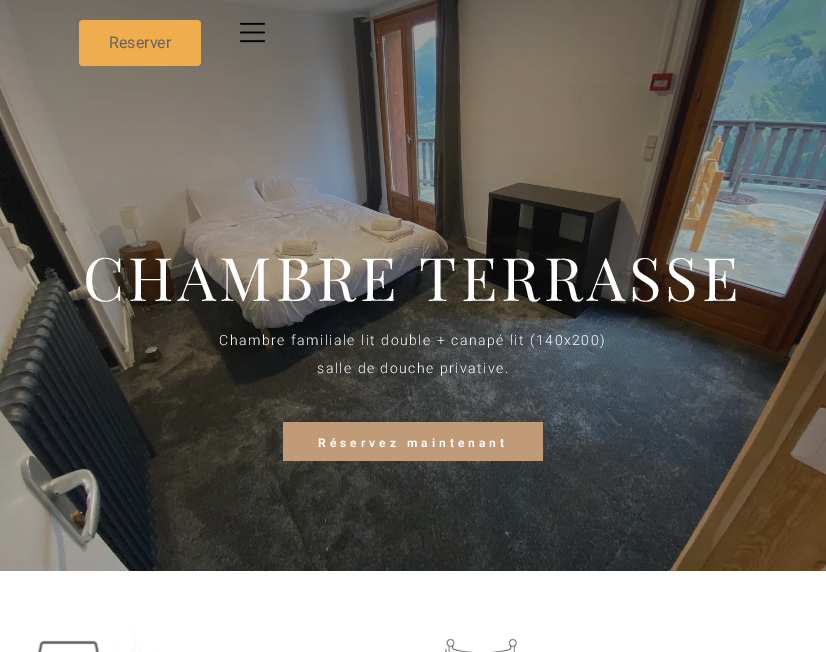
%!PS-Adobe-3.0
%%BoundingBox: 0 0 826 652
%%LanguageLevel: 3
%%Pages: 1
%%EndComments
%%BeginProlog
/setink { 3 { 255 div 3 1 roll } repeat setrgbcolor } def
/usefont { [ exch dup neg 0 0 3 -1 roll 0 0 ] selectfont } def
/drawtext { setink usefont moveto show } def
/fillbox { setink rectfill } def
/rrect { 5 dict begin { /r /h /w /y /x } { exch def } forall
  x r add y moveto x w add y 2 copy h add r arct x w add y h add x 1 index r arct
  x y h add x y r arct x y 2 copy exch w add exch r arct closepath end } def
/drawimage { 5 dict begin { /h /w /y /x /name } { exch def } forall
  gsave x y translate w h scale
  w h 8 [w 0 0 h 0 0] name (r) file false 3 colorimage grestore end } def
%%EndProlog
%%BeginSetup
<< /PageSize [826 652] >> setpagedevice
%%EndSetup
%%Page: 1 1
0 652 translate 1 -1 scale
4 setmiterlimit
0 0 826 652 255 255 255 fillbox
(assets/img2.rgb) 0 0 826 571 drawimage
240 173 78 setink
79 20 122 46 4 rrect fill
(Reserver) 109 48 /Roboto-Regular 16 99 99 99 drawtext
(assets/img1.rgb) 240 22 25 21 drawimage
/PlayfairDisplay-Regular 60 usefont
255 255 255 setink
83 301 moveto 4 0 (CHAMBRE TERRASSE) ashow
/Roboto-Light 14 usefont
219 345 moveto 1.5 0 (Chambre familiale lit double + canapé lit \(140x200\)) ashow
317 373 moveto 1.5 0 (salle de douche privative.) ashow
283 422 260 39 193 155 119 fillbox
/Roboto-Bold 12 usefont
255 255 255 setink
318 447 moveto 4 0 (Réservez maintenant) ashow
(assets/img3.rgb) 112 627 47 25 drawimage
(assets/img4.rgb) 37 640 63 12 drawimage
(assets/img5.rgb) 445 638 72 14 drawimage
showpage
%%EOF
